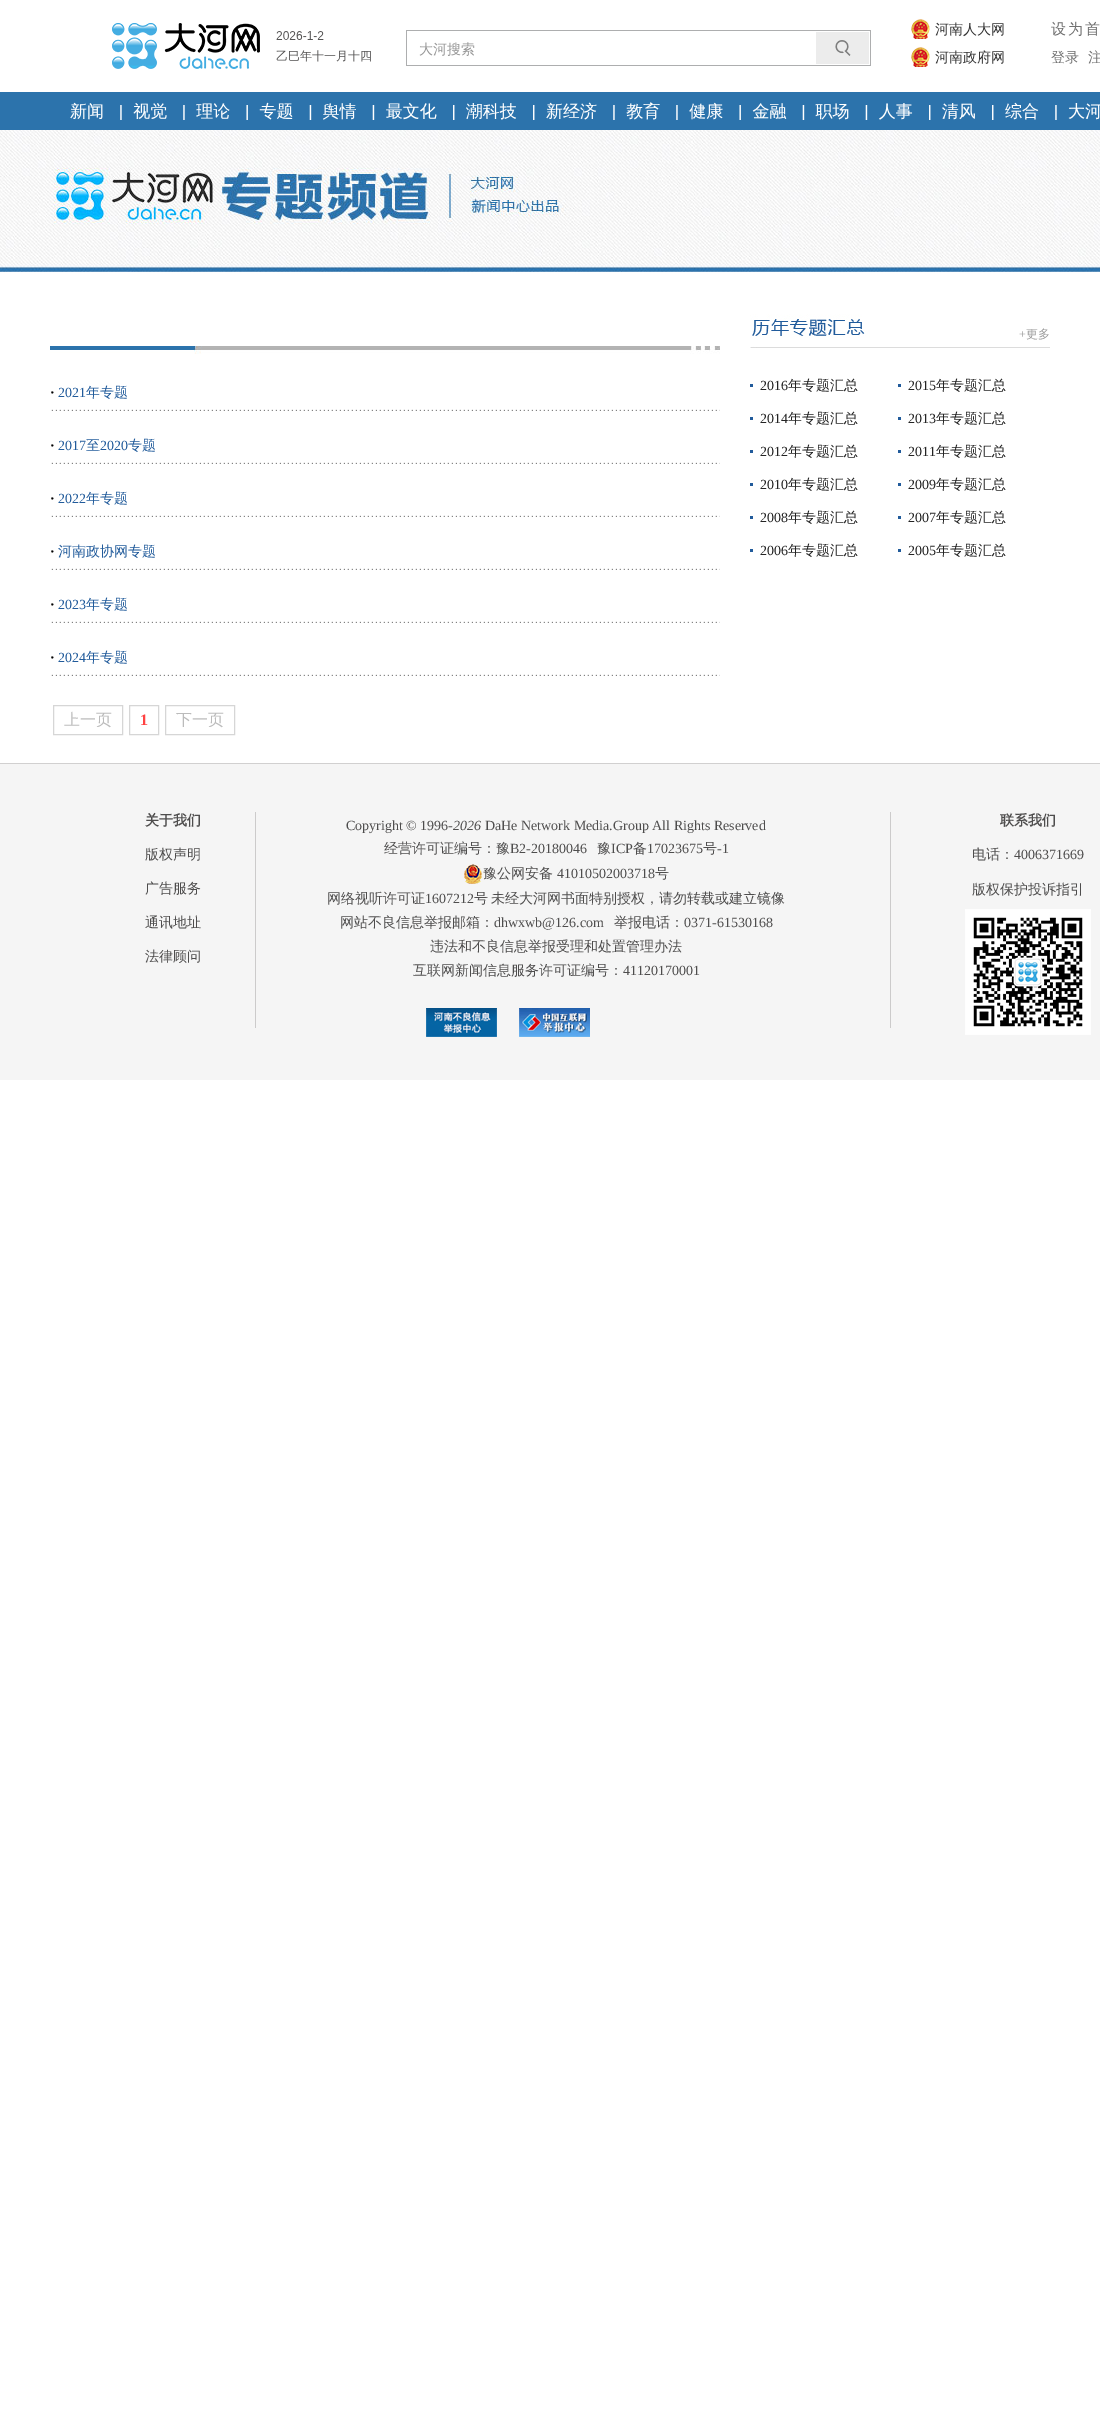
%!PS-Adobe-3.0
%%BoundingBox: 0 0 1100 2414
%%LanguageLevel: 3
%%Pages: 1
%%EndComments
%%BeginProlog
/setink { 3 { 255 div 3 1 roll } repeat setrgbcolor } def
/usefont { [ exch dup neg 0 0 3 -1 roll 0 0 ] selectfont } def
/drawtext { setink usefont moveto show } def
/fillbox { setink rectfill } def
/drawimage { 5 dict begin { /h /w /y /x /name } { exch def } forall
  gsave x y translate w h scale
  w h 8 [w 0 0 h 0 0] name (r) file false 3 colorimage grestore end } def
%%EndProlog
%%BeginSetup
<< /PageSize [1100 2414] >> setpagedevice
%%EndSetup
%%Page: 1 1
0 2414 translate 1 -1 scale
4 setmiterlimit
0 0 1100 2414 255 255 255 fillbox
(assets/img1.rgb) 0 130 1100 142 drawimage
(assets/img2.rgb) 0 19 1100 111 drawimage
(assets/img3.rgb) 50 346 670 8 drawimage
(assets/img4.rgb) 51 409 669 2 drawimage
(·) 50 397 /LiberationSerif-Bold 14 0 0 0 drawtext
(2021) 58 397 /LiberationSerif-Regular 14 33 91 155 drawtext
(年专题) 86 397 /WenQuanYiZenHei-Medium 14 33 91 155 drawtext
(assets/img4.rgb) 51 462 669 2 drawimage
(·) 50 450 /LiberationSerif-Bold 14 0 0 0 drawtext
(2017) 58 450 /LiberationSerif-Regular 14 33 91 155 drawtext
(至) 86 450 /WenQuanYiZenHei-Medium 14 33 91 155 drawtext
(2020) 100 450 /LiberationSerif-Regular 14 33 91 155 drawtext
(专题) 128 450 /WenQuanYiZenHei-Medium 14 33 91 155 drawtext
(assets/img4.rgb) 51 515 669 2 drawimage
(·) 50 503 /LiberationSerif-Bold 14 0 0 0 drawtext
(2022) 58 503 /LiberationSerif-Regular 14 33 91 155 drawtext
(年专题) 86 503 /WenQuanYiZenHei-Medium 14 33 91 155 drawtext
(assets/img4.rgb) 51 568 669 2 drawimage
(·) 50 556 /LiberationSerif-Bold 14 0 0 0 drawtext
(河南政协网专题) 58 556 /WenQuanYiZenHei-Medium 14 33 91 155 drawtext
(assets/img4.rgb) 51 621 669 2 drawimage
(·) 50 609 /LiberationSerif-Bold 14 0 0 0 drawtext
(2023) 58 609 /LiberationSerif-Regular 14 33 91 155 drawtext
(年专题) 86 609 /WenQuanYiZenHei-Medium 14 33 91 155 drawtext
(assets/img4.rgb) 51 674 669 2 drawimage
(·) 50 662 /LiberationSerif-Bold 14 0 0 0 drawtext
(2024) 58 662 /LiberationSerif-Regular 14 33 91 155 drawtext
(年专题) 86 662 /WenQuanYiZenHei-Medium 14 33 91 155 drawtext
214 214 214 setink
53.5 705.5 69 29 rectstroke
(上一页) 64 725 /WenQuanYiZenHei-Medium 16 187 187 187 drawtext
214 214 214 setink
129.5 705.5 29 29 rectstroke
(1) 140 725 /LiberationSerif-Bold 16 255 66 66 drawtext
214 214 214 setink
165.5 705.5 69 29 rectstroke
(下一页) 176 725 /WenQuanYiZenHei-Medium 16 187 187 187 drawtext
(assets/img5.rgb) 750 314 300 34 drawimage
(+) 1019 338 /LiberationSerif-Regular 12 157 157 157 drawtext
(更多) 1026 338 /WenQuanYiZenHei-Medium 12 157 157 157 drawtext
750 384 3 3 33 91 155 fillbox
(2016) 760 390 /LiberationSerif-Regular 14 35 35 35 drawtext
(年专题汇总) 788 390 /WenQuanYiZenHei-Medium 14 35 35 35 drawtext
898 384 3 3 33 91 155 fillbox
(2015) 908 390 /LiberationSerif-Regular 14 35 35 35 drawtext
(年专题汇总) 936 390 /WenQuanYiZenHei-Medium 14 35 35 35 drawtext
750 417 3 3 33 91 155 fillbox
(2014) 760 423 /LiberationSerif-Regular 14 35 35 35 drawtext
(年专题汇总) 788 423 /WenQuanYiZenHei-Medium 14 35 35 35 drawtext
898 417 3 3 33 91 155 fillbox
(2013) 908 423 /LiberationSerif-Regular 14 35 35 35 drawtext
(年专题汇总) 936 423 /WenQuanYiZenHei-Medium 14 35 35 35 drawtext
750 450 3 3 33 91 155 fillbox
(2012) 760 456 /LiberationSerif-Regular 14 35 35 35 drawtext
(年专题汇总) 788 456 /WenQuanYiZenHei-Medium 14 35 35 35 drawtext
898 450 3 3 33 91 155 fillbox
(2011) 908 456 /LiberationSerif-Regular 14 35 35 35 drawtext
(年专题汇总) 936 456 /WenQuanYiZenHei-Medium 14 35 35 35 drawtext
750 483 3 3 33 91 155 fillbox
(2010) 760 489 /LiberationSerif-Regular 14 35 35 35 drawtext
(年专题汇总) 788 489 /WenQuanYiZenHei-Medium 14 35 35 35 drawtext
898 483 3 3 33 91 155 fillbox
(2009) 908 489 /LiberationSerif-Regular 14 35 35 35 drawtext
(年专题汇总) 936 489 /WenQuanYiZenHei-Medium 14 35 35 35 drawtext
750 516 3 3 33 91 155 fillbox
(2008) 760 522 /LiberationSerif-Regular 14 35 35 35 drawtext
(年专题汇总) 788 522 /WenQuanYiZenHei-Medium 14 35 35 35 drawtext
898 516 3 3 33 91 155 fillbox
(2007) 908 522 /LiberationSerif-Regular 14 35 35 35 drawtext
(年专题汇总) 936 522 /WenQuanYiZenHei-Medium 14 35 35 35 drawtext
750 549 3 3 33 91 155 fillbox
(2006) 760 555 /LiberationSerif-Regular 14 35 35 35 drawtext
(年专题汇总) 788 555 /WenQuanYiZenHei-Medium 14 35 35 35 drawtext
898 549 3 3 33 91 155 fillbox
(2005) 908 555 /LiberationSerif-Regular 14 35 35 35 drawtext
(年专题汇总) 936 555 /WenQuanYiZenHei-Medium 14 35 35 35 drawtext
0 764 1100 316 245 245 245 fillbox
0 763 1100 1 209 208 208 fillbox
255 812 1 216 204 203 203 fillbox
(关于我们) 145 825 /WenQuanYiZenHei-Bold 14 78 77 77 drawtext
(版权声明) 145 859 /WenQuanYiZenHei-Medium 14 78 77 77 drawtext
(广告服务) 145 893 /WenQuanYiZenHei-Medium 14 78 77 77 drawtext
(通讯地址) 145 927 /WenQuanYiZenHei-Medium 14 78 77 77 drawtext
(法律顾问) 145 961 /WenQuanYiZenHei-Medium 14 78 77 77 drawtext
890 812 1 216 204 203 203 fillbox
(Copyright © 1996-) 346 830 /LiberationSerif-Regular 14 78 77 77 drawtext
(2026) 453 830 /LiberationSerif-Italic 14 78 77 77 drawtext
(DaHe Network Media.Group All Rights Reserved) 485 830 /LiberationSerif-Regular 14 78 77 77 drawtext
(经营许可证编号：豫) 384 853 /WenQuanYiZenHei-Medium 14 78 77 77 drawtext
(B2-20180046) 510 853 /LiberationSerif-Regular 14 78 77 77 drawtext
(豫) 597 853 /WenQuanYiZenHei-Medium 14 78 77 77 drawtext
(ICP) 611 853 /LiberationSerif-Regular 14 78 77 77 drawtext
(备) 633 853 /WenQuanYiZenHei-Medium 14 78 77 77 drawtext
(17023675) 647 853 /LiberationSerif-Regular 14 78 77 77 drawtext
(号) 703 853 /WenQuanYiZenHei-Medium 14 78 77 77 drawtext
(-1) 717 853 /LiberationSerif-Regular 14 78 77 77 drawtext
(assets/img6.rgb) 464 864 18 20 drawimage
(豫公网安备) 483 878 /WenQuanYiZenHei-Medium 14 78 77 77 drawtext
(41010502003718) 557 878 /LiberationSerif-Regular 14 78 77 77 drawtext
(号) 655 878 /WenQuanYiZenHei-Medium 14 78 77 77 drawtext
(网络视听许可证) 327 903 /WenQuanYiZenHei-Medium 14 78 77 77 drawtext
(1607212) 425 903 /LiberationSerif-Regular 14 78 77 77 drawtext
/WenQuanYiZenHei-Medium 14 usefont
474 903 moveto -1 0 32 (号 未经大河网书面特别授权，请勿转载或建立镜像) widthshow
(网站不良信息举报邮箱：) 340 927 /WenQuanYiZenHei-Medium 14 78 77 77 drawtext
(dhwxwb@126.com) 494 927 /LiberationSerif-Regular 14 78 77 77 drawtext
(举报电话：) 614 927 /WenQuanYiZenHei-Medium 14 78 77 77 drawtext
(0371-61530168) 684 927 /LiberationSerif-Regular 14 78 77 77 drawtext
(违法和不良信息举报受理和处置管理办法) 430 951 /WenQuanYiZenHei-Medium 14 78 77 77 drawtext
(互联网新闻信息服务许可证编号：) 413 975 /WenQuanYiZenHei-Medium 14 78 77 77 drawtext
(41120170001) 623 975 /LiberationSerif-Regular 14 78 77 77 drawtext
(assets/img7.rgb) 426 1008 71 29 drawimage
(assets/img8.rgb) 519 1008 71 29 drawimage
(联系我们) 1000 825 /WenQuanYiZenHei-Bold 14 78 77 77 drawtext
(电话：) 972 859 /WenQuanYiZenHei-Medium 14 78 77 77 drawtext
(4006371669) 1014 859 /LiberationSerif-Regular 14 78 77 77 drawtext
(版权保护投诉指引) 972 894 /WenQuanYiZenHei-Medium 14 78 77 77 drawtext
(assets/img9.rgb) 965 909 126 126 drawimage
showpage
%%EOF
